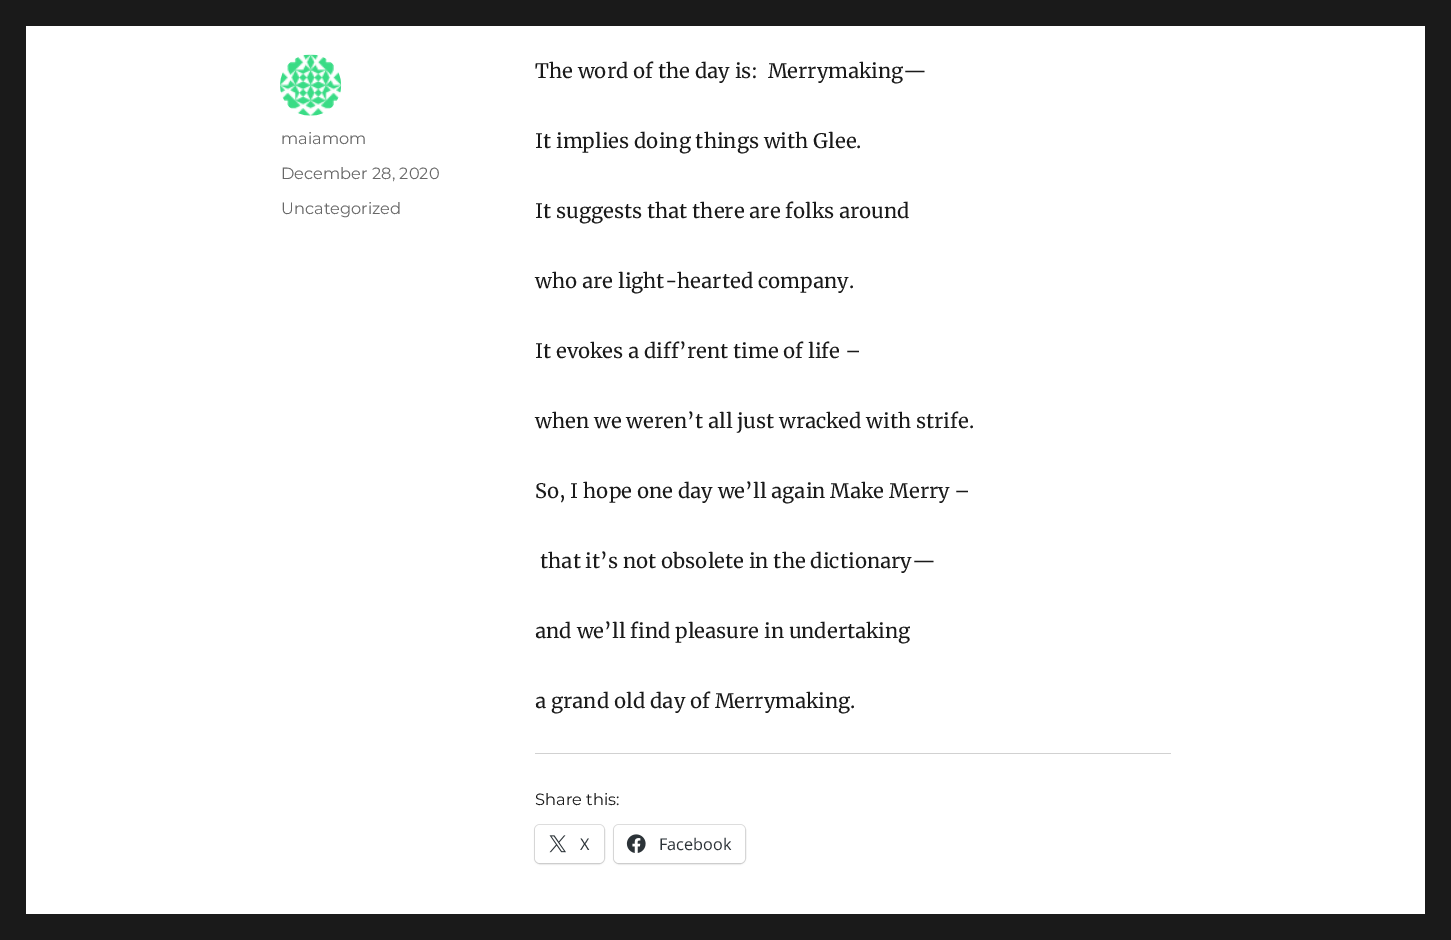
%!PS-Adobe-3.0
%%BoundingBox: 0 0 1451 940
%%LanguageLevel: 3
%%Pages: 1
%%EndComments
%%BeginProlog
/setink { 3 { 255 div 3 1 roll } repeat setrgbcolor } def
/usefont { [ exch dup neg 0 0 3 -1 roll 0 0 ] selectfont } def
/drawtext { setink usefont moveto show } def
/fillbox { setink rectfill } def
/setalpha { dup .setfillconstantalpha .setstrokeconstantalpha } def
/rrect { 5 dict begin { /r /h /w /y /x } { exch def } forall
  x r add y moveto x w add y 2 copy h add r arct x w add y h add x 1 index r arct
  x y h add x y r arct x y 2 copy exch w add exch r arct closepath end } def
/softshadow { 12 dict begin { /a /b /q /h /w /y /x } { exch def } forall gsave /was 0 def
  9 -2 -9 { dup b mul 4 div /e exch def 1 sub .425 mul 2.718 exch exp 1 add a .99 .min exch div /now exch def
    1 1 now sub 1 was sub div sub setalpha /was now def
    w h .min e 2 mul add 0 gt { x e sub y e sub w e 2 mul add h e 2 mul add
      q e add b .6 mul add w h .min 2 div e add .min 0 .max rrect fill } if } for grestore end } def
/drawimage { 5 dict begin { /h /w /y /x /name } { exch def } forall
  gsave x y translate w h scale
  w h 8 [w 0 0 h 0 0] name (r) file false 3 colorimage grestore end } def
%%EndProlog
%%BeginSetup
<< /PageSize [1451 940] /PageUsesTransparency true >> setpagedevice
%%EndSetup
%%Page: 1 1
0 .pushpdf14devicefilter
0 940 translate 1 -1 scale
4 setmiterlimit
0 0 1451 940 26 26 26 fillbox
26 26 1399 888 255 255 255 fillbox
(assets/img1.rgb) 280 54 62 62 drawimage
(maiamom) 281 144 /Montserrat-Thin 16.25 104 104 104 drawtext
(December 28, 2020) 281 179 /Montserrat-Thin 16.25 104 104 104 drawtext
(Uncategorized) 281 214 /Montserrat-Thin 16.25 104 104 104 drawtext
(The word of the day is:  Merrymaking—) 535 78 /Merriweather-Regular 20 26 26 26 drawtext
(It implies doing things with Glee.) 535 148 /Merriweather-Regular 20 26 26 26 drawtext
(It suggests that there are folks around) 535 218 /Merriweather-Regular 20 26 26 26 drawtext
(who are light-hearted company.) 535 288 /Merriweather-Regular 20 26 26 26 drawtext
(It evokes a diff’rent time of life –) 535 358 /Merriweather-Regular 20 26 26 26 drawtext
(when we weren’t all just wracked with strife.) 535 428 /Merriweather-Regular 20 26 26 26 drawtext
(So, I hope one day we’ll again Make Merry –) 535 498 /Merriweather-Regular 20 26 26 26 drawtext
(that it’s not obsolete in the dictionary—) 540 568 /Merriweather-Regular 20 26 26 26 drawtext
(and we’ll find pleasure in undertaking) 535 638 /Merriweather-Regular 20 26 26 26 drawtext
(a grand old day of Merrymaking.) 535 708 /Merriweather-Regular 20 26 26 26 drawtext
535 753 636 1 209 209 209 fillbox
(Share this:) 535 805 /Montserrat-Thin 16.25 26 26 26 drawtext
224 224 224 setink
534.5 824.5 70 39 5.5 rrect stroke
0 0 0 setink
535 826 69 38 5 1 0.12 softshadow
255 255 255 setink
535 825 69 38 5 rrect fill
(assets/img2.rgb) 549 835 17 18 drawimage
(X) 580 850 /OpenSans-Regular 16.25 44 51 56 drawtext
224 224 224 setink
613.5 824.5 132 39 5.5 rrect stroke
0 0 0 setink
614 826 131 38 5 1 0.12 softshadow
255 255 255 setink
614 825 131 38 5 rrect fill
(assets/img3.rgb) 626 834 20 19 drawimage
(Facebook) 659 850 /OpenSans-Regular 16.25 44 51 56 drawtext
.poppdf14devicefilter showpage
%%EOF
